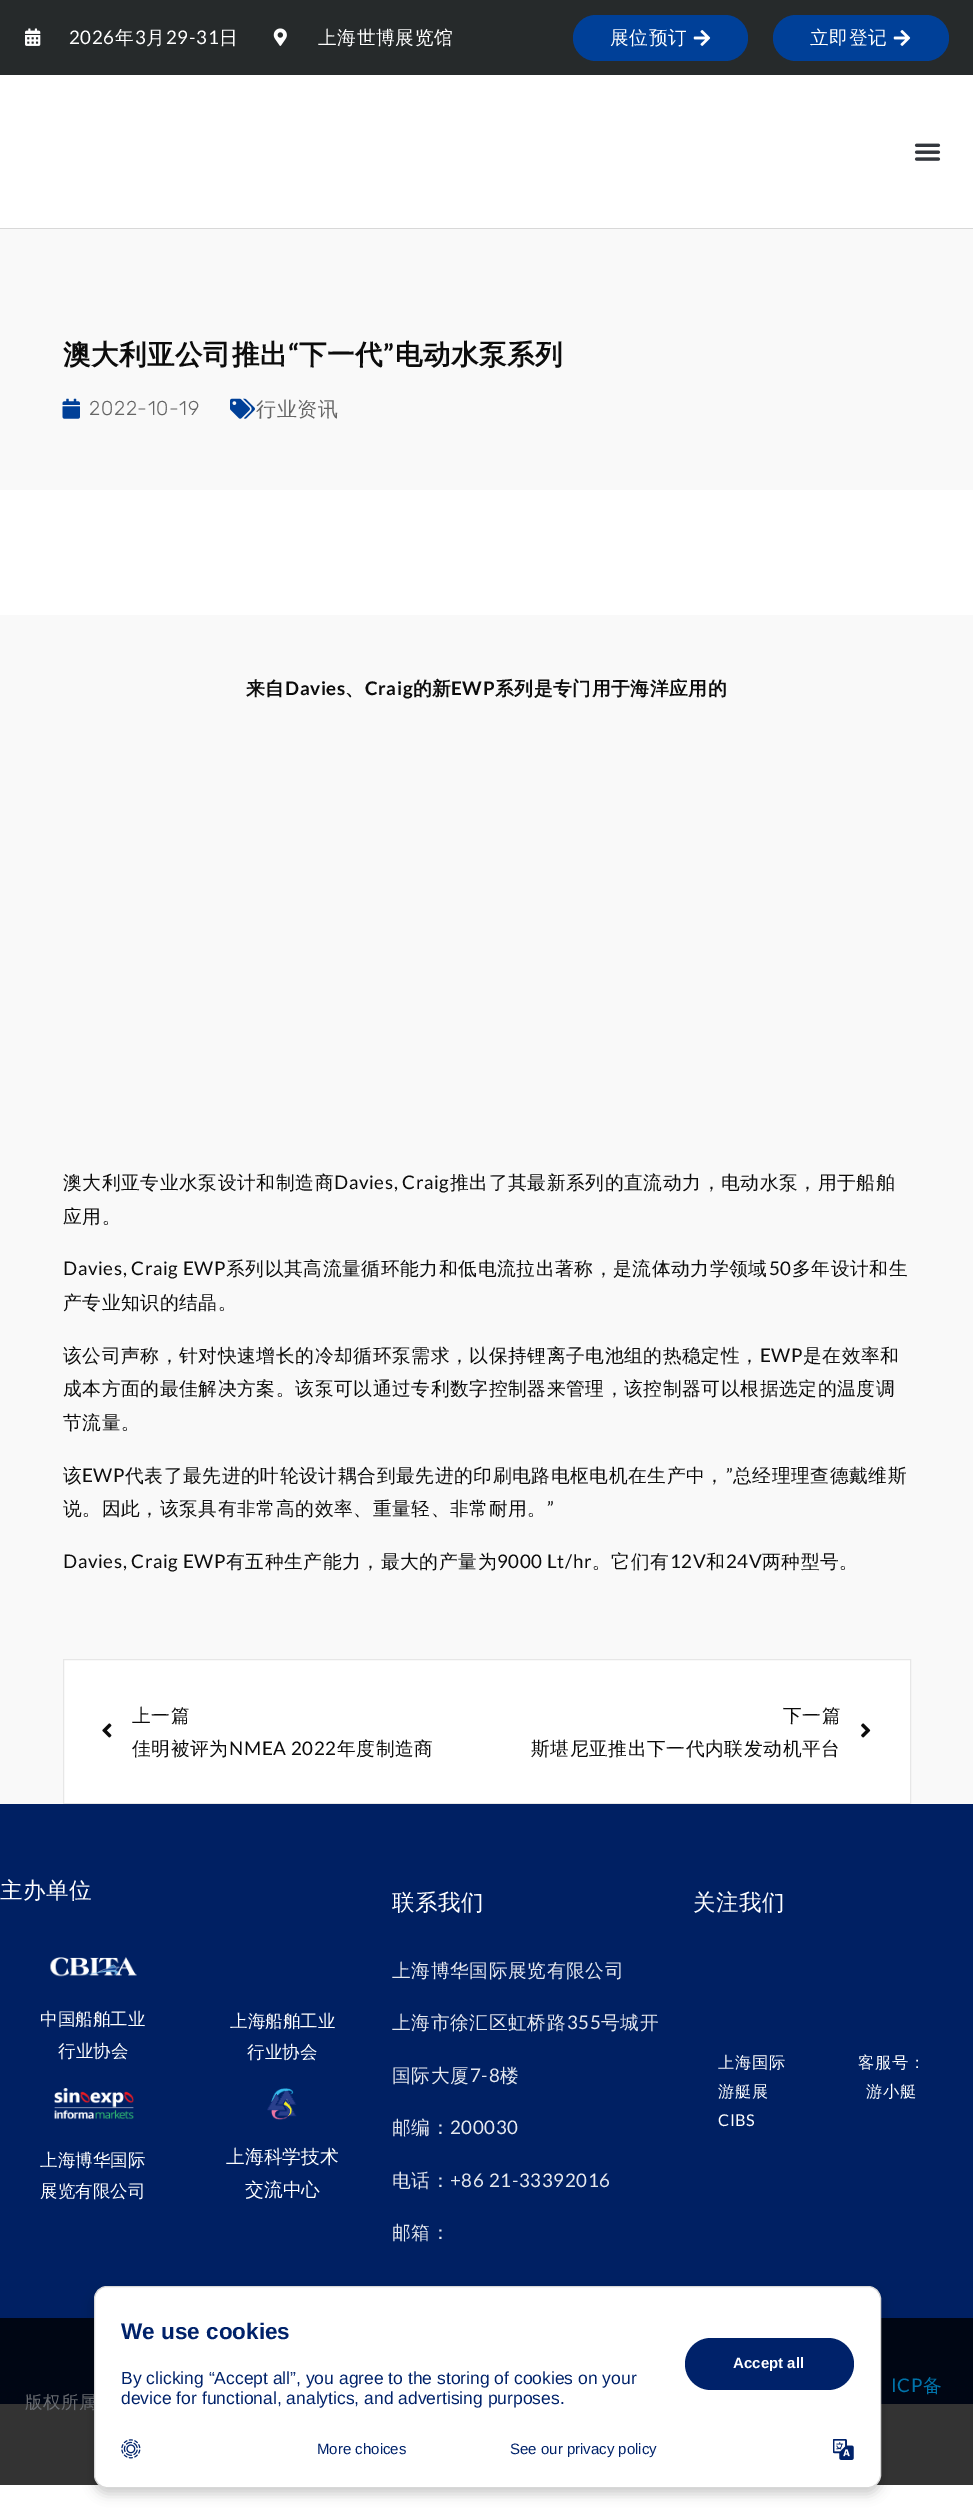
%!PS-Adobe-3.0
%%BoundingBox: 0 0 973 2515
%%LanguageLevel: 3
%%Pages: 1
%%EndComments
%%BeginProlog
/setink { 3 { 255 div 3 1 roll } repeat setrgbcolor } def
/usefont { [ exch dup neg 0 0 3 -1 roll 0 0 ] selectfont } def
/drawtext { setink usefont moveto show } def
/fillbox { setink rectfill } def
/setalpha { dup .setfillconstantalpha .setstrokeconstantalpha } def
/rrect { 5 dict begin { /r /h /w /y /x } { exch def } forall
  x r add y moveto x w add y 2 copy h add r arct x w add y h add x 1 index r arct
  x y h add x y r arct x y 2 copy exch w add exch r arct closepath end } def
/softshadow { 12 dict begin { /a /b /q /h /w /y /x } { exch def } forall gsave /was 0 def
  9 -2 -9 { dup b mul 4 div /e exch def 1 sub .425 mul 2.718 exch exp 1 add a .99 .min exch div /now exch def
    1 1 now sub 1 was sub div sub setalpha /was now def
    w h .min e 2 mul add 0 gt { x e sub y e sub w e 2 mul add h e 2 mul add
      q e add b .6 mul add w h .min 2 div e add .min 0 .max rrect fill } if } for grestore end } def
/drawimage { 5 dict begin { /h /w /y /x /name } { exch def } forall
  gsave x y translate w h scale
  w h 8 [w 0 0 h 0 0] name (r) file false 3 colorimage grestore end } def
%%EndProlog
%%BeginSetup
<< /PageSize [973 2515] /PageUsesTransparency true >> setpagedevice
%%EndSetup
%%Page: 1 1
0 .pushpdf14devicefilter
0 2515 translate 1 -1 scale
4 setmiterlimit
0 0 973 2515 255 255 255 fillbox
0 2404 973 81 51 51 51 fillbox
0 0 973 75 38 42 43 fillbox
(assets/img1.rgb) 25 28 16 18 drawimage
/Lato-Regular 18.75 usefont
255 255 255 setink
69 44 moveto 0.6 0 (2026) ashow
/WenQuanYiZenHei-Medium 18.75 usefont
115 44 moveto 0.6 0 (年) ashow
/Lato-Regular 18.75 usefont
135 44 moveto 0.6 0 (3) ashow
/WenQuanYiZenHei-Medium 18.75 usefont
146 44 moveto 0.6 0 (月) ashow
/Lato-Regular 18.75 usefont
166 44 moveto 0.6 0 (29-31) ashow
/WenQuanYiZenHei-Medium 18.75 usefont
219 44 moveto 0.6 0 (日) ashow
(assets/img2.rgb) 273 28 14 18 drawimage
318 44 moveto 0.6 0 (上海世博展览馆) ashow
0 64 152 setink
573 15 175 46 23 rrect fill
255 255 255 setink
610 44 moveto 0.6 0 (展位预订) ashow
(assets/img3.rgb) 693 30 18 16 drawimage
0 64 152 setink
773 15 176 46 23 rrect fill
255 255 255 setink
810 44 moveto 0.6 0 (立即登记) ashow
(assets/img3.rgb) 893 30 18 16 drawimage
0 228 973 1 216 216 216 fillbox
(assets/img4.rgb) 914 143 27 18 drawimage
0 229 973 261 249 249 249 fillbox
/WenQuanYiZenHei-Bold 27.5 usefont
12 12 12 setink
63 364 moveto 0.6 0 (澳大利亚公司推出) ashow
/Lato-Bold 27.5 usefont
288 364 moveto 0.6 0 (“) ashow
/WenQuanYiZenHei-Bold 27.5 usefont
299 364 moveto 0.6 0 (下一代) ashow
/Lato-Bold 27.5 usefont
383 364 moveto 0.6 0 (”) ashow
/WenQuanYiZenHei-Bold 27.5 usefont
395 364 moveto 0.6 0 (电动水泵系列) ashow
(assets/img5.rgb) 62 398 18 21 drawimage
/Rubik-Light 20 usefont
102 102 102 setink
89 415 moveto 0.6 0 (2022-10-19) ashow
(assets/img6.rgb) 230 398 25 21 drawimage
/WenQuanYiZenHei-Medium 20 usefont
256 416 moveto 0.6 0 (行业资讯) ashow
0 615 973 1189 249 249 249 fillbox
/WenQuanYiZenHei-Bold 18.75 usefont
12 12 12 setink
246 695 moveto 0.6 0 (来自) ashow
/Lato-Bold 18.75 usefont
285 695 moveto 0.6 0 (Davies) ashow
365 695 moveto 0.6 0 (Craig) ashow
/WenQuanYiZenHei-Bold 18.75 usefont
413 695 moveto 0.6 0 (的新) ashow
/Lato-Bold 18.75 usefont
451 695 moveto 0.6 0 (EWP) ashow
/WenQuanYiZenHei-Bold 18.75 usefont
495 695 moveto 0.6 0 (系列是专门用于海洋应用的) ashow
345 695 moveto 0.6 0 (、) ashow
/WenQuanYiZenHei-Medium 18.75 usefont
63 1189 moveto 0.6 0 (澳大利亚专业水泵设计和制造商) ashow
/Lato-Regular 18.75 usefont
334 1189 moveto 0.6 0 (Davies, Craig) ashow
/WenQuanYiZenHei-Medium 18.75 usefont
450 1189 moveto 0.6 0 (推出了其最新系列的直流动力，电动水泵，用于船舶) ashow
63 1223 moveto 0.6 0 (应用。) ashow
/Lato-Regular 18.75 usefont
63 1275 moveto 0.6 0 (Davies, Craig EWP) ashow
/WenQuanYiZenHei-Medium 18.75 usefont
226 1275 moveto 0.6 0 (系列以其高流量循环能力和低电流拉出著称，是流体动力学领域) ashow
/Lato-Regular 18.75 usefont
769 1275 moveto 0.6 0 (50) ashow
/WenQuanYiZenHei-Medium 18.75 usefont
792 1275 moveto 0.6 0 (多年设计和生) ashow
63 1309 moveto 0.6 0 (产专业知识的结晶。) ashow
63 1362 moveto 0.6 0 (该公司声称，针对快速增长的冷却循环泵需求，以保持锂离子电池组的热稳定性，) ashow
/Lato-Regular 18.75 usefont
760 1362 moveto 0.6 0 (EWP) ashow
/WenQuanYiZenHei-Medium 18.75 usefont
803 1362 moveto 0.6 0 (是在效率和) ashow
63 1395 moveto 0.6 0 (成本方面的最佳解决方案。该泵可以通过专利数字控制器来管理，该控制器可以根据选定的温度调) ashow
63 1429 moveto 0.6 0 (节流量。) ashow
63 1482 moveto 0.6 0 (该) ashow
/Lato-Regular 18.75 usefont
82 1482 moveto 0.6 0 (EWP) ashow
/WenQuanYiZenHei-Medium 18.75 usefont
125 1482 moveto 0.6 0 (代表了最先进的叶轮设计耦合到最先进的印刷电路电枢电机在生产中，) ashow
/Lato-Regular 18.75 usefont
726 1482 moveto 0.6 0 (”) ashow
/WenQuanYiZenHei-Medium 18.75 usefont
733 1482 moveto 0.6 0 (总经理理查德戴维斯) ashow
63 1515 moveto 0.6 0 (说。因此，该泵具有非常高的效率、重量轻、非常耐用。) ashow
/Lato-Regular 18.75 usefont
547 1515 moveto 0.6 0 (”) ashow
63 1568 moveto 0.6 0 (Davies, Craig EWP) ashow
/WenQuanYiZenHei-Medium 18.75 usefont
226 1568 moveto 0.6 0 (有五种生产能力，最大的产量为) ashow
/Lato-Regular 18.75 usefont
497 1568 moveto 0.6 0 (9000 Lt/hr) ashow
/WenQuanYiZenHei-Medium 18.75 usefont
592 1568 moveto 0.6 0 (。它们有) ashow
/Lato-Regular 18.75 usefont
670 1568 moveto 0.6 0 (12V) ashow
/WenQuanYiZenHei-Medium 18.75 usefont
706 1568 moveto 0.6 0 (和) ashow
/Lato-Regular 18.75 usefont
726 1568 moveto 0.6 0 (24V) ashow
/WenQuanYiZenHei-Medium 18.75 usefont
762 1568 moveto 0.6 0 (两种型号。) ashow
255 255 255 setink
63.5 1659.5 moveto 910.5 1659.5 lineto 910.5 1803.5 lineto 63.5 1803.5 lineto closepath gsave fill grestore
231 231 231 setink
stroke
(assets/img7.rgb) 102 1723 10 15 drawimage
12 12 12 setink
132 1722 moveto 0.6 0 (上一篇) ashow
132 1755 moveto 0.6 0 (佳明被评为) ashow
/Lato-Regular 18.75 usefont
229 1755 moveto 0.6 0 (NMEA 2022) ashow
/WenQuanYiZenHei-Medium 18.75 usefont
337 1755 moveto 0.6 0 (年度制造商) ashow
783 1722 moveto 0.6 0 (下一篇) ashow
531 1755 moveto 0.6 0 (斯堪尼亚推出下一代内联发动机平台) ashow
(assets/img8.rgb) 861 1723 10 15 drawimage
0 1804 973 514 0 32 99 fillbox
0 2318 973 86 0 6 20 fillbox
/WenQuanYiZenHei-Medium 22.5 usefont
255 255 255 setink
0 1898 moveto 0.6 0 (主办单位) ashow
(assets/img9.rgb) 50 1957 87 20 drawimage
(中国船舶工业) 40 2025 /WenQuanYiZenHei-Medium 17.5 255 255 255 drawtext
(行业协会) 58 2057 /WenQuanYiZenHei-Medium 17.5 255 255 255 drawtext
(assets/img10.rgb) 54 2088 80 32 drawimage
(上海博华国际) 40 2166 /WenQuanYiZenHei-Medium 17.5 255 255 255 drawtext
(展览有限公司) 40 2197 /WenQuanYiZenHei-Medium 17.5 255 255 255 drawtext
(上海船舶工业) 230 2027 /WenQuanYiZenHei-Medium 17.5 255 255 255 drawtext
(行业协会) 247 2058 /WenQuanYiZenHei-Medium 17.5 255 255 255 drawtext
(assets/img11.rgb) 267 2088 30 32 drawimage
(上海科学技术) 226 2163 /WenQuanYiZenHei-Medium 18.75 255 255 255 drawtext
(交流中心) 245 2196 /WenQuanYiZenHei-Medium 18.75 255 255 255 drawtext
/WenQuanYiZenHei-Medium 22.5 usefont
392 1910 moveto 0.6 0 (联系我们) ashow
/WenQuanYiZenHei-Medium 18.75 usefont
230 233 239 setink
392 1977 moveto 0.6 0 (上海博华国际展览有限公司) ashow
392 2029 moveto 0.6 0 (上海市徐汇区虹桥路) ashow
/Lato-Regular 18.75 usefont
567 2029 moveto 0.6 0 (355) ashow
/WenQuanYiZenHei-Medium 18.75 usefont
601 2029 moveto 0.6 0 (号城开) ashow
392 2082 moveto 0.6 0 (国际大厦) ashow
/Lato-Regular 18.75 usefont
470 2082 moveto 0.6 0 (7-8) ashow
/WenQuanYiZenHei-Medium 18.75 usefont
500 2082 moveto 0.6 0 (楼) ashow
392 2134 moveto 0.6 0 (邮编：) ashow
/Lato-Regular 18.75 usefont
450 2134 moveto 0.6 0 (200030) ashow
/WenQuanYiZenHei-Medium 18.75 usefont
392 2187 moveto 0.6 0 (电话：) ashow
/Lato-Regular 18.75 usefont
450 2187 moveto 0.6 0 (+86 21-33392016) ashow
/WenQuanYiZenHei-Medium 18.75 usefont
392 2239 moveto 0.6 0 (邮箱：) ashow
/WenQuanYiZenHei-Medium 22.5 usefont
255 255 255 setink
693 1910 moveto 0.6 0 (关注我们) ashow
/WenQuanYiZenHei-Medium 16.25 usefont
718 2068 moveto 0.6 0 (上海国际) ashow
718 2097 moveto 0.6 0 (游艇展) ashow
/Lato-Regular 16.25 usefont
718 2126 moveto 0.6 0 (CIBS) ashow
/WenQuanYiZenHei-Medium 16.25 usefont
858 2068 moveto 0.6 0 (客服号：) ashow
866 2097 moveto 0.6 0 (游小艇) ashow
/Lato-Regular 18.75 usefont
0 115 170 setink
891 2392 moveto 0.6 0 (ICP) ashow
/WenQuanYiZenHei-Medium 18.75 usefont
923 2392 moveto 0.6 0 (备) ashow
/WenQuanYiZenHei-Medium 17.5 usefont
106 109 114 setink
25 2408 moveto 0.6 0 (版权所属) ashow
0 0 0 setink
94 2293 787 201 13 6 0.2 softshadow
255 255 255 setink
94.5 2286.5 786 201 12.5 rrect gsave fill grestore
216 216 216 setink
stroke
(We use cookies) 121 2339 /LiberationSans-Bold 22.5 0 34 106 drawtext
(By clicking “Accept all”, you agree to the storing of cookies on your) 121 2384 /LiberationSans-Regular 17.5 0 34 106 drawtext
(device for functional, analytics, and advertising purposes.) 121 2404 /LiberationSans-Regular 17.5 0 34 106 drawtext
685 2338 169 52 26 rrect fill
(Accept all) 733 2368 /LiberationSans-Bold 15 255 255 255 drawtext
(assets/img12.rgb) 121 2439 20 20 drawimage
(More choices) 317 2454 /LiberationSans-Regular 15 0 34 106 drawtext
(See our privacy policy) 510 2454 /LiberationSans-Regular 15 0 34 106 drawtext
(assets/img13.rgb) 833 2439 21 21 drawimage
.poppdf14devicefilter showpage
%%EOF
